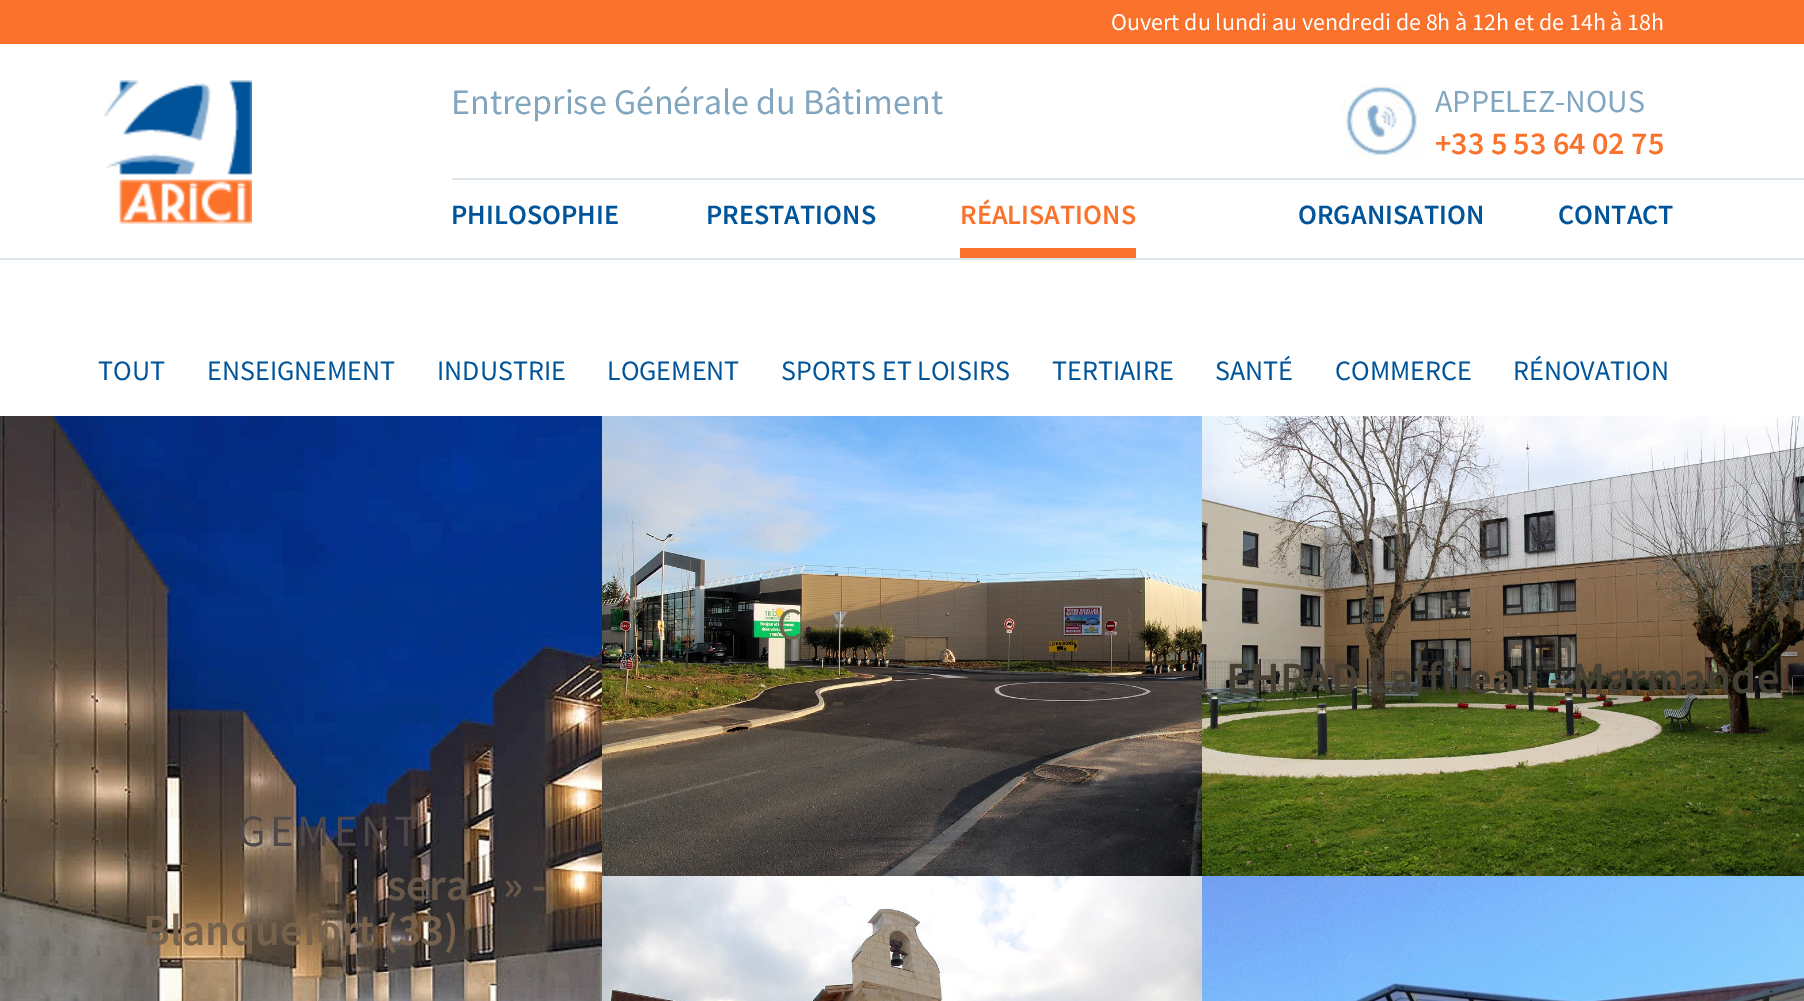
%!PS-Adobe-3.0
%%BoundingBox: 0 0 1804 1001
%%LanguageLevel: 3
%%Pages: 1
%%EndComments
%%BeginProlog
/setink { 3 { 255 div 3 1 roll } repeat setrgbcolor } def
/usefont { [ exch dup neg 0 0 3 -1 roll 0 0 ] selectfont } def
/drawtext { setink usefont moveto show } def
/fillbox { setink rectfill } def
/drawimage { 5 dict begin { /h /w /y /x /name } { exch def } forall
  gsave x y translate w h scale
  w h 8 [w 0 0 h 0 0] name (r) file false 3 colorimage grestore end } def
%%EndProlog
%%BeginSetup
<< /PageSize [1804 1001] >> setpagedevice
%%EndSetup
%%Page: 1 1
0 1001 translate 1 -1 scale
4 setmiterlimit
0 0 1804 1001 255 255 255 fillbox
0 0 1804 44 251 114 44 fillbox
(Ouvert du lundi au vendredi de 8h à 12h et de 14h à 18h) 1111 30 /SourceSansPro-Regular 24 255 255 255 drawtext
(assets/img1.rgb) 104 80 148 144 drawimage
(Entreprise Générale du Bâtiment) 451 114 /SourceSansPro-Regular 36 130 166 192 drawtext
(assets/img2.rgb) 1342 84 82 74 drawimage
(APPELEZ-NOUS) 1435 112 /SourceSansPro-Regular 32 130 166 192 drawtext
(+33 5 53 64 02 75) 1435 154 /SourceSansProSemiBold-SemiBold 32 251 114 44 drawtext
452 178 1352 2 221 229 236 fillbox
(PHILOSOPHIE) 451 224 /SourceSansProSemiBold-SemiBold 28 0 84 153 drawtext
(PRESTATIONS) 706 224 /SourceSansProSemiBold-SemiBold 28 0 84 153 drawtext
960 248 176 10 251 114 44 fillbox
(RÉALISATIONS) 960 224 /SourceSansProSemiBold-SemiBold 28 251 114 44 drawtext
(ORGANISATION) 1298 224 /SourceSansProSemiBold-SemiBold 28 0 84 153 drawtext
(CONTACT) 1558 224 /SourceSansProSemiBold-SemiBold 28 0 84 153 drawtext
0 258 1804 2 221 229 236 fillbox
(TOUT) 98 380 /SourceSansPro-Regular 28 0 84 153 drawtext
(ENSEIGNEMENT) 207 380 /SourceSansPro-Regular 28 0 84 153 drawtext
(INDUSTRIE) 437 380 /SourceSansPro-Regular 28 0 84 153 drawtext
(LOGEMENT) 607 380 /SourceSansPro-Regular 28 0 84 153 drawtext
(SPORTS ET LOISIRS) 781 380 /SourceSansPro-Regular 28 0 84 153 drawtext
(TERTIAIRE) 1052 380 /SourceSansPro-Regular 28 0 84 153 drawtext
(SANTÉ) 1215 380 /SourceSansPro-Regular 28 0 84 153 drawtext
(COMMERCE) 1335 380 /SourceSansPro-Regular 28 0 84 153 drawtext
(RÉNOVATION) 1513 380 /SourceSansPro-Regular 28 0 84 153 drawtext
(assets/img3.rgb) 602 416 600 460 drawimage
/SourceSansPro-Regular 44.75 usefont
107 100 78 setink
777 639 moveto 4 0 (C) ashow
(-) 831 715 /SourceSansProSemiBold-SemiBold 44.75 79 69 55 drawtext
(assets/img4.rgb) 1202 416 602 460 drawimage
(EHPAD Laffiteau - Marmande) 1226 693 /SourceSansProSemiBold-SemiBold 44.75 69 64 51 drawtext
(assets/img5.rgb) 0 416 602 585 drawimage
/SourceSansPro-Regular 44.75 usefont
79 72 73 setink
238 846 moveto 4 0 (GEMENT) ashow
(sera) 387 900 /SourceSansProSemiBold-SemiBold 44.75 104 88 73 drawtext
(» -) 503 900 /SourceSansProSemiBold-SemiBold 44.75 104 88 73 drawtext
(Blanquefort \(33\)) 143 945 /SourceSansProSemiBold-SemiBold 44.75 117 97 76 drawtext
(assets/img6.rgb) 602 876 600 125 drawimage
(assets/img7.rgb) 1202 876 602 125 drawimage
showpage
%%EOF
